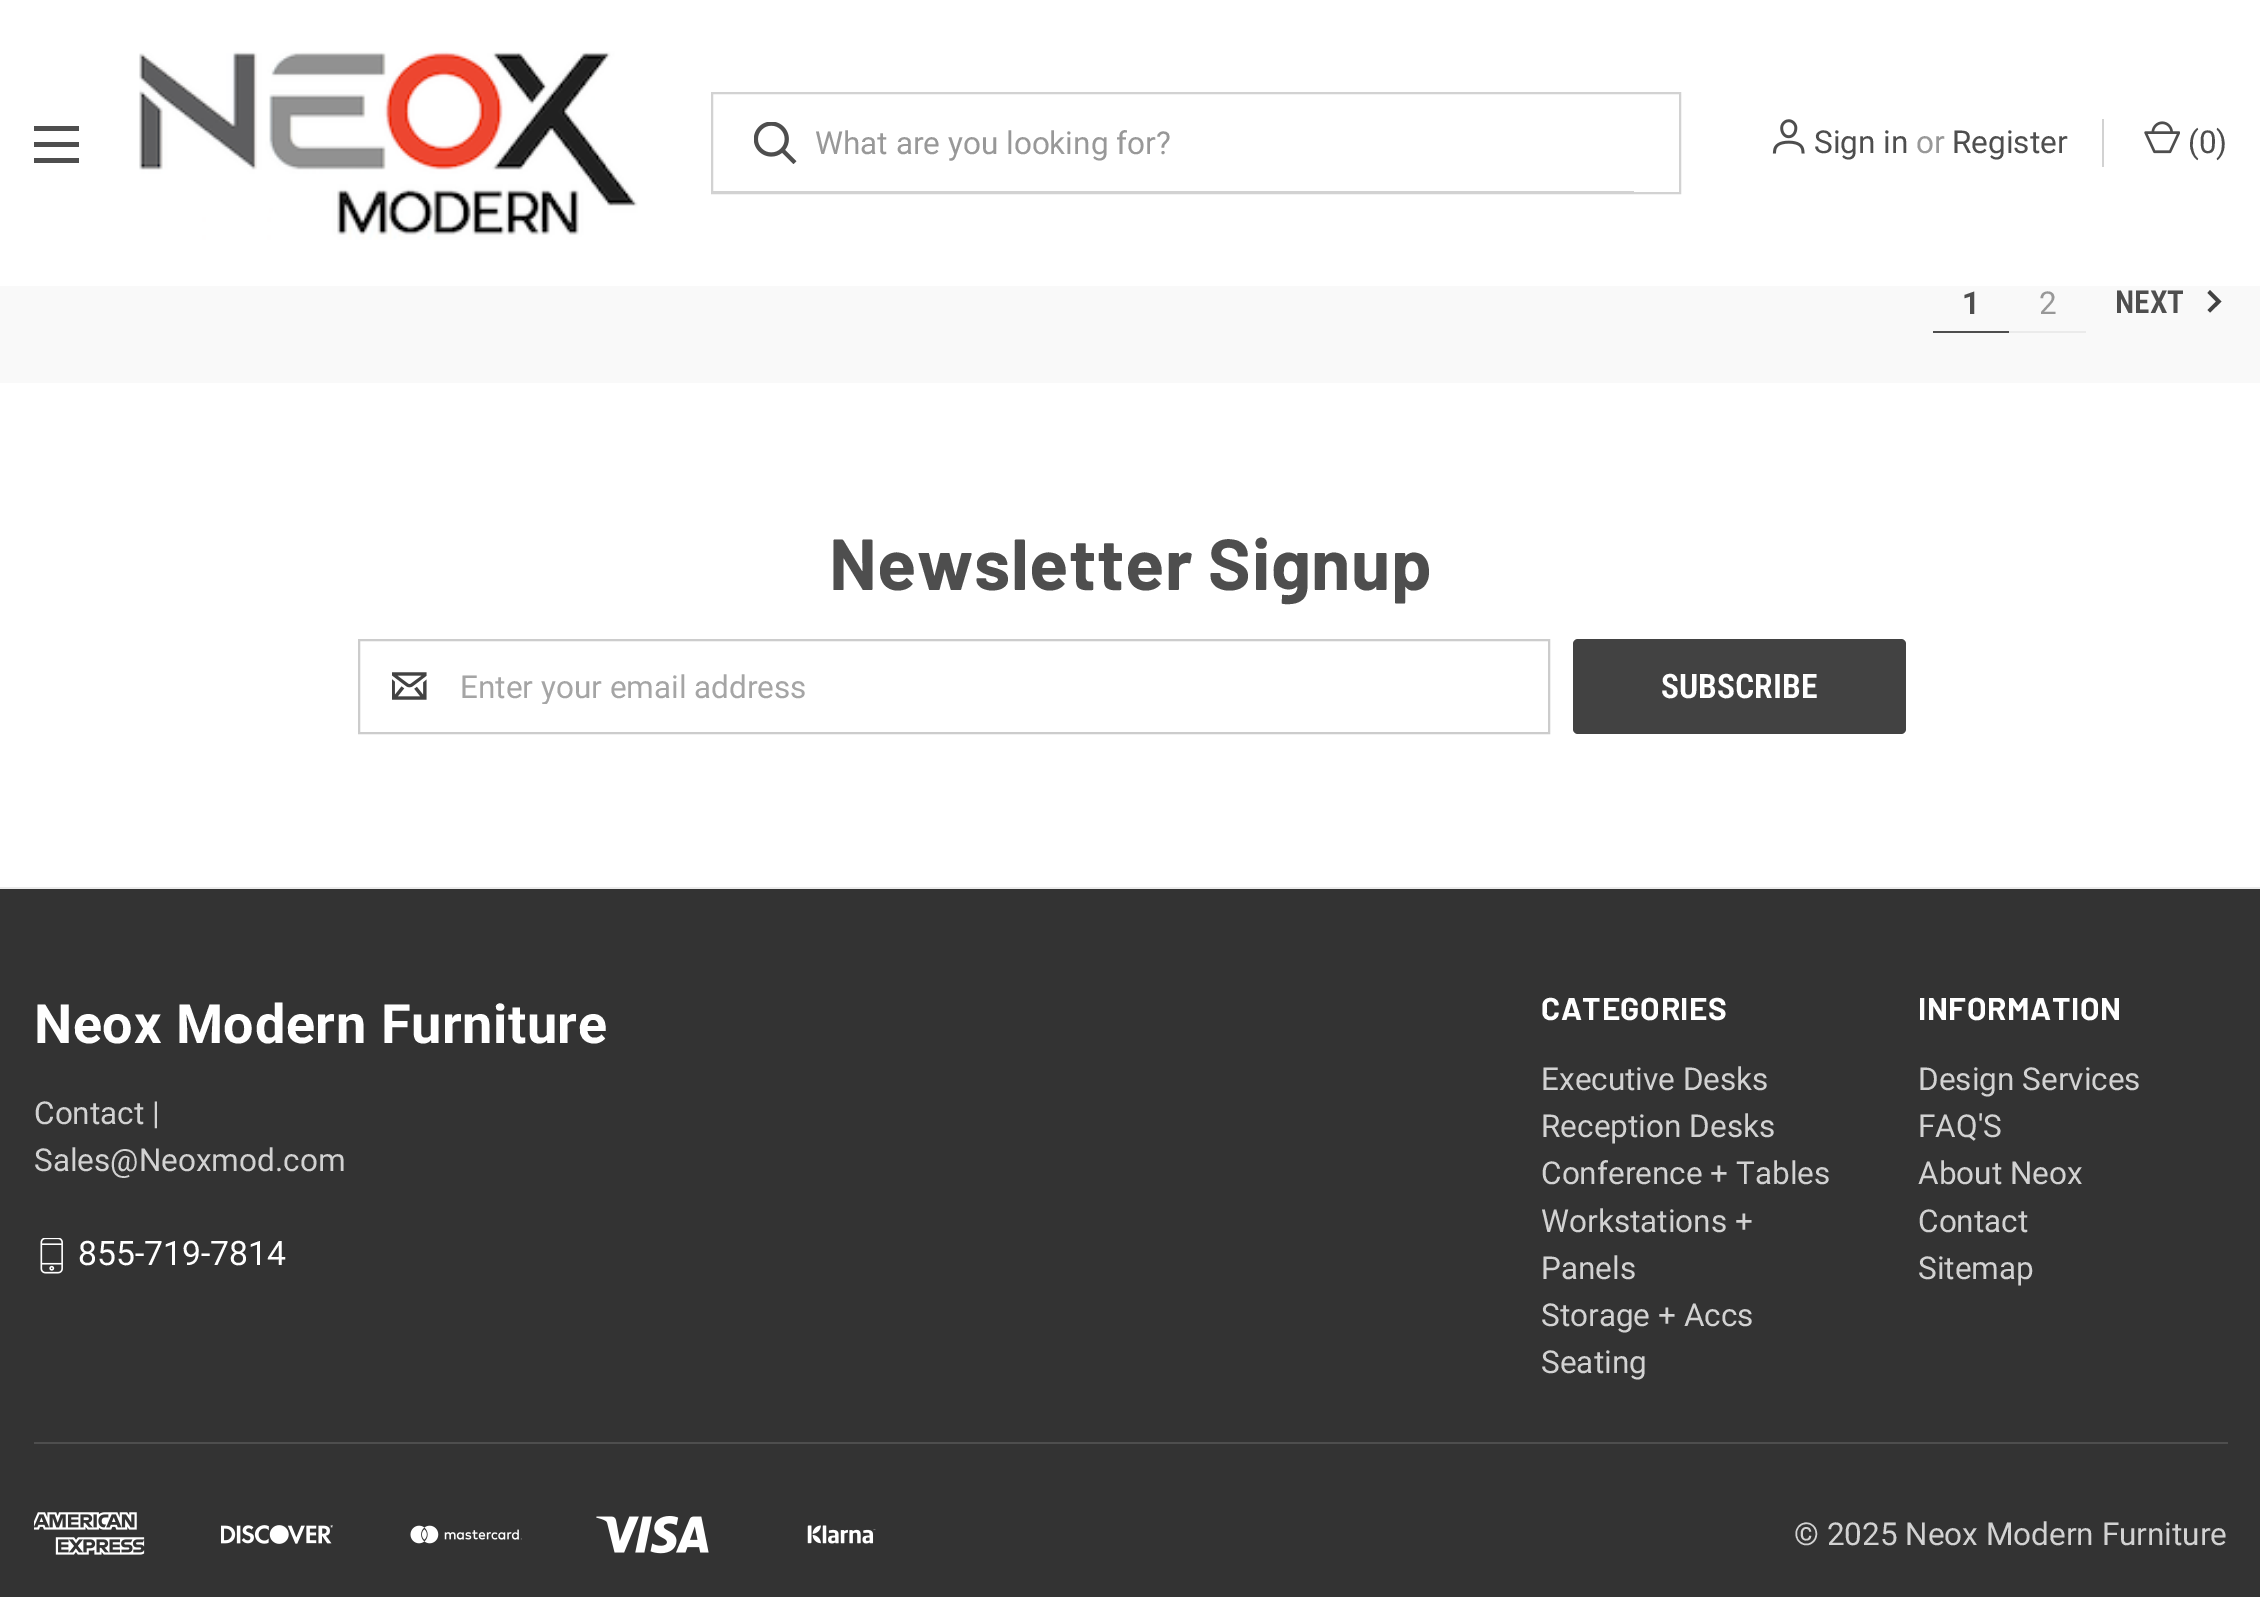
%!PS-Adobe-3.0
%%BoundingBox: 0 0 2260 1597
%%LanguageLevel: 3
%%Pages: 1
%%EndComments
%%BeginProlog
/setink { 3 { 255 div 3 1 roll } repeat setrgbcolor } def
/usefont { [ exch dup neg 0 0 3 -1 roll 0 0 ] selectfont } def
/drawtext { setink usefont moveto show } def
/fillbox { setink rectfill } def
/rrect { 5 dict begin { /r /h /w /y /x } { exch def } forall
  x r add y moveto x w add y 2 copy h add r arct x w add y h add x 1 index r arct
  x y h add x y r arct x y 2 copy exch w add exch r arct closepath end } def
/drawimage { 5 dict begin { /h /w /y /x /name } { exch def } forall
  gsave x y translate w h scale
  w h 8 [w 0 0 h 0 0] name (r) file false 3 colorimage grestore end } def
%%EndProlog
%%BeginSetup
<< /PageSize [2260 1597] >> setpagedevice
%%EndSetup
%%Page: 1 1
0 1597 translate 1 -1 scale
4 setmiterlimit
0 0 2260 1597 255 255 255 fillbox
34 142 45 5 78 78 78 fillbox
34 126 45 5 78 78 78 fillbox
34 158 45 5 78 78 78 fillbox
(assets/img1.rgb) 139 51 499 189 drawimage
210 210 210 setink
2 setlinewidth
712 93 968 100 rectstroke
(assets/img2.rgb) 754 122 43 42 drawimage
(What are you looking for?) 815 154 /Roboto-Regular 31.5 152 152 152 drawtext
711 191 923 1 210 210 210 fillbox
(assets/img3.rgb) 1772 119 33 35 drawimage
(Sign in) 1814 153 /Roboto-Regular 31.5 78 78 78 drawtext
(or) 1916 153 /Roboto-Regular 31.5 152 152 152 drawtext
(Register) 1952 153 /Roboto-Regular 31.5 78 78 78 drawtext
2102 119 2 48 210 210 210 fillbox
(assets/img4.rgb) 2144 121 36 33 drawimage
(\(0\)) 2188 153 /Roboto-Regular 31.5 78 78 78 drawtext
0 286 2260 97 249 249 249 fillbox
1933 331 76 2 78 78 78 fillbox
(1) 1962 314 /Roboto-Bold 31.5 78 78 78 drawtext
2009 331 77 2 235 235 235 fillbox
(2) 2039 314 /Roboto-Regular 31.5 152 152 152 drawtext
(NEXT) 2115 313 /RobotoCondensed-SemiBold 31.5 78 78 78 drawtext
66 66 66 setink
2210 290 moveto 2207.5 293 lineto 2216 301.5 lineto 2207.5 310 lineto 2210 312.5 lineto 2221.5 301.5 lineto closepath fill
/Barlow-Bold 72 usefont
78 78 78 setink
829 590 moveto 0.6 0 (Newsletter Signup) ashow
204 204 204 setink
359 640 1190 93 rectstroke
(assets/img5.rgb) 392 672 35 28 drawimage
gsave
461 668 1056 36 rectclip
(Enter your email address) 460 698 /Roboto-Regular 31.5 165 165 165 drawtext
grestore
66 66 66 setink
1573 639 333 95 5 rrect fill
(SUBSCRIBE) 1661 698 /RobotoCondensed-SemiBold 33.75 255 255 255 drawtext
0 889 2260 708 51 51 51 fillbox
0 887 2260 2 235 235 235 fillbox
/Roboto-Bold 54 usefont
255 255 255 setink
34 1043 moveto 0.6 0 (Neox Modern Furniture) ashow
(Contact |) 34 1124 /Roboto-Regular 31.5 210 210 210 drawtext
(Sales@Neoxmod.com) 34 1171 /Roboto-Regular 31.5 210 210 210 drawtext
(assets/img6.rgb) 40 1238 23 36 drawimage
(855-719-7814) 78 1265 /Roboto-Regular 33.75 255 255 255 drawtext
/Barlow-Bold 31.5 usefont
1541 1020 moveto 0.6 0 (CATEGORIES) ashow
(Executive Desks) 1541 1090 /Roboto-Regular 31.5 210 210 210 drawtext
(Reception Desks) 1541 1137 /Roboto-Regular 31.5 210 210 210 drawtext
(Conference + Tables) 1541 1184 /Roboto-Regular 31.5 210 210 210 drawtext
(Workstations +) 1541 1232 /Roboto-Regular 31.5 210 210 210 drawtext
(Panels) 1541 1279 /Roboto-Regular 31.5 210 210 210 drawtext
(Storage + Accs) 1541 1326 /Roboto-Regular 31.5 210 210 210 drawtext
(Seating) 1541 1373 /Roboto-Regular 31.5 210 210 210 drawtext
/Barlow-Bold 31.5 usefont
255 255 255 setink
1918 1020 moveto 0.6 0 (INFORMATION) ashow
(Design Services) 1918 1090 /Roboto-Regular 31.5 210 210 210 drawtext
(FAQ'S) 1918 1137 /Roboto-Regular 31.5 210 210 210 drawtext
(About Neox) 1918 1184 /Roboto-Regular 31.5 210 210 210 drawtext
(Contact) 1918 1232 /Roboto-Regular 31.5 210 210 210 drawtext
(Sitemap) 1918 1279 /Roboto-Regular 31.5 210 210 210 drawtext
34 1442 2194 2 78 78 78 fillbox
(assets/img7.rgb) 34 1512 111 43 drawimage
(assets/img8.rgb) 221 1525 112 19 drawimage
(assets/img9.rgb) 410 1525 112 19 drawimage
(assets/img10.rgb) 596 1516 113 38 drawimage
(assets/img11.rgb) 807 1525 69 19 drawimage
(© 2025 Neox Modern Furniture) 1794 1545 /Roboto-Regular 31.5 210 210 210 drawtext
showpage
%%EOF
